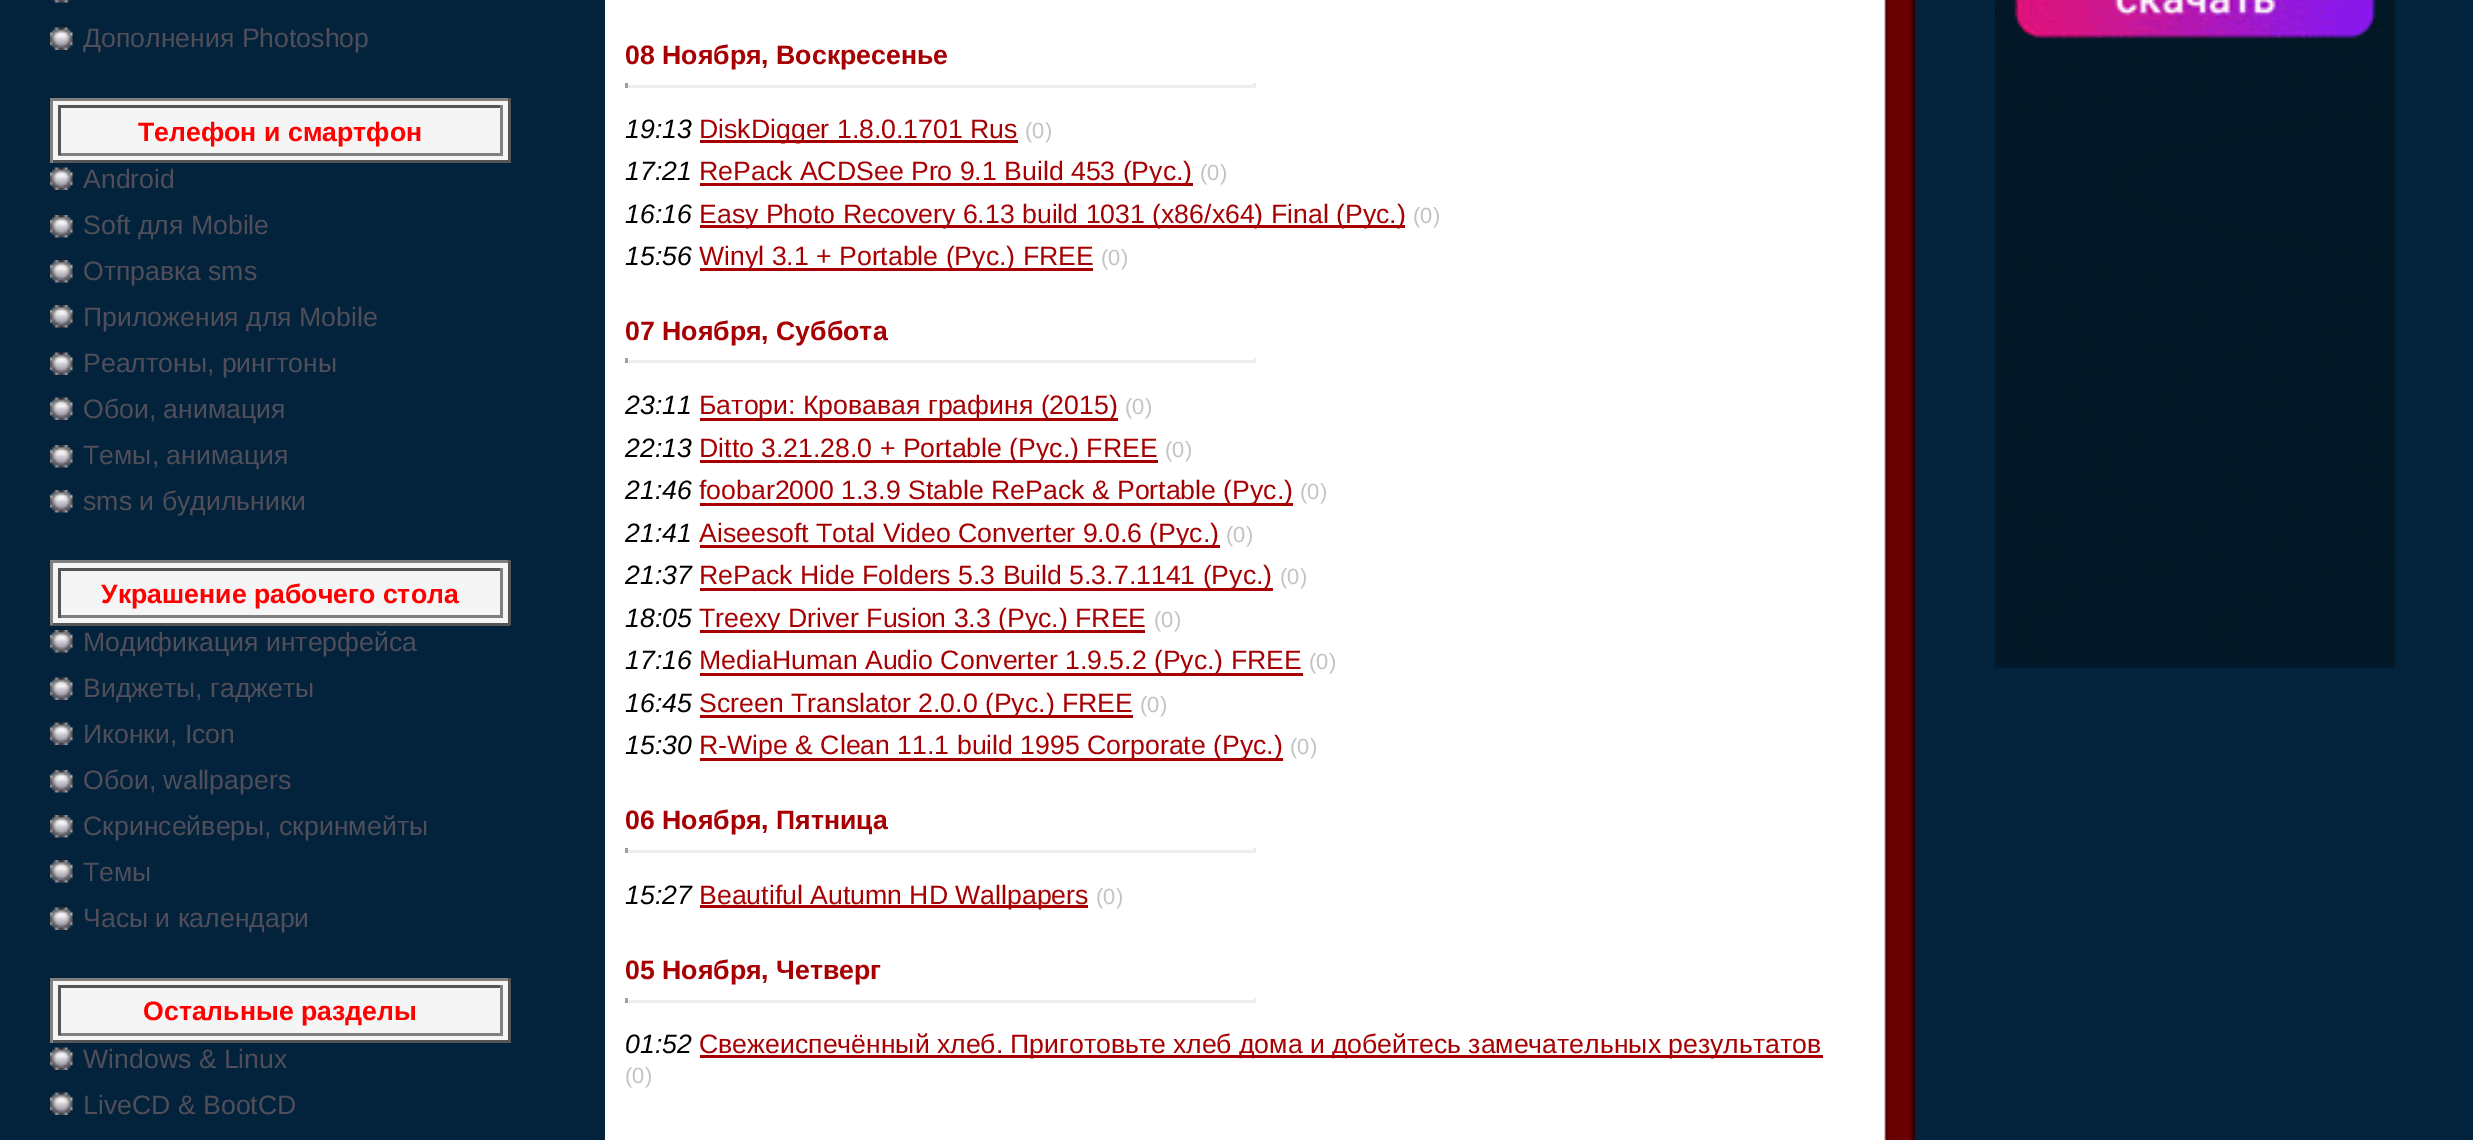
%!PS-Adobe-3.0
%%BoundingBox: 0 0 2473 1140
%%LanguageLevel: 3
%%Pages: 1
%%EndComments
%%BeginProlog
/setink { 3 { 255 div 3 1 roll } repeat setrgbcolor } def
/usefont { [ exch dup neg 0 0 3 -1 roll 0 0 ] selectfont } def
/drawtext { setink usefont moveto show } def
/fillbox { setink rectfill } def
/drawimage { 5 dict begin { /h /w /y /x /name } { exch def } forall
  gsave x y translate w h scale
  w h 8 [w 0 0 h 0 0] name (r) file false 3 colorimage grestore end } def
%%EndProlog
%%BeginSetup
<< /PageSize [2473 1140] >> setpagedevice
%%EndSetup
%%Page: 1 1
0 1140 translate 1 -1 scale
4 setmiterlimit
0 0 2473 1140 3 34 60 fillbox
(assets/img1.rgb) 52 0 19 3 drawimage
(assets/img2.rgb) 50 27 23 23 drawimage
(Дополнения Photoshop) 83 47 /LiberationSans-Regular 26.65 80 78 89 drawtext
53 101 455 59 245 245 245 fillbox
50 98 460 3 128 128 128 fillbox
508 98 3 65 85 85 85 fillbox
50 160 460 3 85 85 85 fillbox
50 98 3 65 128 128 128 fillbox
58 105 445 3 85 85 85 fillbox
500 105 3 50 128 128 128 fillbox
58 153 445 3 128 128 128 fillbox
58 105 3 50 85 85 85 fillbox
(Телефон и смартфон) 138 141 /LiberationSans-Bold 26.65 255 0 0 drawtext
(assets/img2.rgb) 50 167 23 23 drawimage
(Android) 83 188 /LiberationSans-Regular 26.65 80 78 89 drawtext
(assets/img3.rgb) 50 215 23 23 drawimage
(Soft для Mobile) 83 234 /LiberationSans-Regular 26.65 80 78 89 drawtext
(assets/img4.rgb) 50 260 23 23 drawimage
(Отправка sms) 83 280 /LiberationSans-Regular 26.65 80 78 89 drawtext
(assets/img4.rgb) 50 305 23 23 drawimage
(Приложения для Mobile) 83 326 /LiberationSans-Regular 26.65 80 78 89 drawtext
(assets/img2.rgb) 50 352 23 23 drawimage
(Реалтоны, рингтоны) 83 372 /LiberationSans-Regular 26.65 80 78 89 drawtext
(assets/img2.rgb) 50 397 23 23 drawimage
(Обои, анимация) 83 418 /LiberationSans-Regular 26.65 80 78 89 drawtext
(assets/img4.rgb) 50 445 23 23 drawimage
(Темы, анимация) 83 464 /LiberationSans-Regular 26.65 80 78 89 drawtext
(assets/img4.rgb) 50 490 23 23 drawimage
(sms и будильники) 83 510 /LiberationSans-Regular 26.65 80 78 89 drawtext
53 563 455 60 245 245 245 fillbox
50 560 460 3 128 128 128 fillbox
508 560 3 65 85 85 85 fillbox
50 623 460 3 85 85 85 fillbox
50 560 3 65 128 128 128 fillbox
58 568 445 3 85 85 85 fillbox
500 568 3 50 128 128 128 fillbox
58 615 445 3 128 128 128 fillbox
58 568 3 50 85 85 85 fillbox
(Украшение рабочего стола) 101 603 /LiberationSans-Bold 26.65 255 0 0 drawtext
(assets/img4.rgb) 50 630 23 23 drawimage
(Модификация интерфейса) 83 651 /LiberationSans-Regular 26.65 80 78 89 drawtext
(assets/img2.rgb) 50 677 23 23 drawimage
(Виджеты, гаджеты) 83 697 /LiberationSans-Regular 26.65 80 78 89 drawtext
(assets/img2.rgb) 50 722 23 23 drawimage
(Иконки, Icon) 83 743 /LiberationSans-Regular 26.65 80 78 89 drawtext
(assets/img4.rgb) 50 770 23 23 drawimage
(Обои, wallpapers) 83 789 /LiberationSans-Regular 26.65 80 78 89 drawtext
(assets/img4.rgb) 50 815 23 23 drawimage
(Скринсейверы, скринмейты) 83 835 /LiberationSans-Regular 26.65 80 78 89 drawtext
(assets/img4.rgb) 50 860 23 23 drawimage
(Темы) 83 881 /LiberationSans-Regular 26.65 80 78 89 drawtext
(assets/img2.rgb) 50 907 23 23 drawimage
(Часы и календари) 83 927 /LiberationSans-Regular 26.65 80 78 89 drawtext
53 981 455 59 245 245 245 fillbox
50 978 460 3 128 128 128 fillbox
508 978 3 65 85 85 85 fillbox
50 1040 460 3 85 85 85 fillbox
50 978 3 65 128 128 128 fillbox
58 985 445 3 85 85 85 fillbox
500 985 3 50 128 128 128 fillbox
58 1033 445 3 128 128 128 fillbox
58 985 3 50 85 85 85 fillbox
(Остальные разделы) 143 1020 /LiberationSans-Bold 26.65 255 0 0 drawtext
(assets/img2.rgb) 50 1047 23 23 drawimage
(Windows & Linux) 83 1068 /LiberationSans-Regular 26.65 80 78 89 drawtext
(assets/img5.rgb) 50 1092 23 23 drawimage
(LiveCD & BootCD) 83 1114 /LiberationSans-Regular 26.65 80 78 89 drawtext
605 0 1265 1140 255 255 255 fillbox
(08 Ноября, Воскресенье) 625 64 /LiberationSans-Bold 26.65 167 0 3 drawtext
1253 83 3 5 238 238 238 fillbox
625 85 630 3 238 238 238 fillbox
625 83 3 5 159 159 159 fillbox
(19:13) 625 138 /LiberationSans-Italic 26.65 0 0 0 drawtext
700 140 318 3 167 0 3 fillbox
(DiskDigger 1.8.0.1701 Rus) 699 138 /LiberationSans-Regular 26.65 167 0 3 drawtext
(\(0\)) 1025 138 /LiberationSans-Regular 22 195 195 195 drawtext
(17:21) 625 180 /LiberationSans-Italic 26.65 0 0 0 drawtext
700 183 493 3 167 0 3 fillbox
(RePack ACDSee Pro 9.1 Build 453 \(Рус.\)) 699 180 /LiberationSans-Regular 26.65 167 0 3 drawtext
(\(0\)) 1200 180 /LiberationSans-Regular 22 195 195 195 drawtext
(16:16) 625 223 /LiberationSans-Italic 26.65 0 0 0 drawtext
700 225 705 3 167 0 3 fillbox
(Easy Photo Recovery 6.13 build 1031 \(x86/x64\) Final \(Рус.\)) 699 223 /LiberationSans-Regular 26.65 167 0 3 drawtext
(\(0\)) 1413 223 /LiberationSans-Regular 22 195 195 195 drawtext
(15:56) 625 265 /LiberationSans-Italic 26.65 0 0 0 drawtext
700 268 393 3 167 0 3 fillbox
(Winyl 3.1 + Portable \(Рус.\) FREE) 699 265 /LiberationSans-Regular 26.65 167 0 3 drawtext
(\(0\)) 1101 265 /LiberationSans-Regular 22 195 195 195 drawtext
(07 Ноября, Суббота) 625 340 /LiberationSans-Bold 26.65 167 0 3 drawtext
1253 358 3 5 238 238 238 fillbox
625 360 630 3 238 238 238 fillbox
625 358 3 5 159 159 159 fillbox
(23:11) 625 414 /LiberationSans-Italic 26.65 0 0 0 drawtext
700 418 418 3 167 0 3 fillbox
(Батори: Кровавая графиня \(2015\)) 699 414 /LiberationSans-Regular 26.65 167 0 3 drawtext
(\(0\)) 1125 414 /LiberationSans-Regular 22 195 195 195 drawtext
(22:13) 625 457 /LiberationSans-Italic 26.65 0 0 0 drawtext
700 460 458 3 167 0 3 fillbox
(Ditto 3.21.28.0 + Portable \(Рус.\) FREE) 699 457 /LiberationSans-Regular 26.65 167 0 3 drawtext
(\(0\)) 1165 457 /LiberationSans-Regular 22 195 195 195 drawtext
(21:46) 625 499 /LiberationSans-Italic 26.65 0 0 0 drawtext
700 503 593 3 167 0 3 fillbox
(foobar2000 1.3.9 Stable RePack & Portable \(Рус.\)) 699 499 /LiberationSans-Regular 26.65 167 0 3 drawtext
(\(0\)) 1300 499 /LiberationSans-Regular 22 195 195 195 drawtext
(21:41) 625 542 /LiberationSans-Italic 26.65 0 0 0 drawtext
700 545 520 3 167 0 3 fillbox
(Aiseesoft Total Video Converter 9.0.6 \(Рус.\)) 699 542 /LiberationSans-Regular 26.65 167 0 3 drawtext
(\(0\)) 1226 542 /LiberationSans-Regular 22 195 195 195 drawtext
(21:37) 625 584 /LiberationSans-Italic 26.65 0 0 0 drawtext
700 588 573 3 167 0 3 fillbox
(RePack Hide Folders 5.3 Build 5.3.7.1141 \(Рус.\)) 699 584 /LiberationSans-Regular 26.65 167 0 3 drawtext
(\(0\)) 1280 584 /LiberationSans-Regular 22 195 195 195 drawtext
(18:05) 625 627 /LiberationSans-Italic 26.65 0 0 0 drawtext
700 630 445 3 167 0 3 fillbox
(Treexy Driver Fusion 3.3 \(Рус.\) FREE) 699 627 /LiberationSans-Regular 26.65 167 0 3 drawtext
(\(0\)) 1154 627 /LiberationSans-Regular 22 195 195 195 drawtext
(17:16) 625 669 /LiberationSans-Italic 26.65 0 0 0 drawtext
700 673 603 3 167 0 3 fillbox
(MediaHuman Audio Converter 1.9.5.2 \(Рус.\) FREE) 699 669 /LiberationSans-Regular 26.65 167 0 3 drawtext
(\(0\)) 1309 669 /LiberationSans-Regular 22 195 195 195 drawtext
(16:45) 625 712 /LiberationSans-Italic 26.65 0 0 0 drawtext
700 715 433 3 167 0 3 fillbox
(Screen Translator 2.0.0 \(Рус.\) FREE) 699 712 /LiberationSans-Regular 26.65 167 0 3 drawtext
(\(0\)) 1140 712 /LiberationSans-Regular 22 195 195 195 drawtext
(15:30) 625 754 /LiberationSans-Italic 26.65 0 0 0 drawtext
700 758 583 3 167 0 3 fillbox
(R-Wipe & Clean 11.1 build 1995 Corporate \(Рус.\)) 699 754 /LiberationSans-Regular 26.65 167 0 3 drawtext
(\(0\)) 1290 754 /LiberationSans-Regular 22 195 195 195 drawtext
(06 Ноября, Пятница) 625 829 /LiberationSans-Bold 26.65 167 0 3 drawtext
1253 848 3 5 238 238 238 fillbox
625 850 630 3 238 238 238 fillbox
625 848 3 5 159 159 159 fillbox
(15:27) 625 904 /LiberationSans-Italic 26.65 0 0 0 drawtext
700 905 388 3 167 0 3 fillbox
(Beautiful Autumn HD Wallpapers) 699 904 /LiberationSans-Regular 26.65 167 0 3 drawtext
(\(0\)) 1096 904 /LiberationSans-Regular 22 195 195 195 drawtext
(05 Ноября, Четверг) 625 979 /LiberationSans-Bold 26.65 167 0 3 drawtext
1253 998 3 5 238 238 238 fillbox
625 1000 630 3 238 238 238 fillbox
625 998 3 5 159 159 159 fillbox
(01:52) 625 1053 /LiberationSans-Italic 26.65 0 0 0 drawtext
700 1055 1123 3 167 0 3 fillbox
/LiberationSans-Regular 26.65 usefont
699 1053 moveto -0.25 0 32 (Свежеиспечённый хлеб. Приготовьте хлеб дома и добейтесь замечательных результатов) widthshow
(\(0\)) 625 1083 /LiberationSans-Regular 22 195 195 195 drawtext
(assets/img6.rgb) 1870 0 45 1140 drawimage
(assets/img7.rgb) 1995 0 400 668 drawimage
showpage
%%EOF
